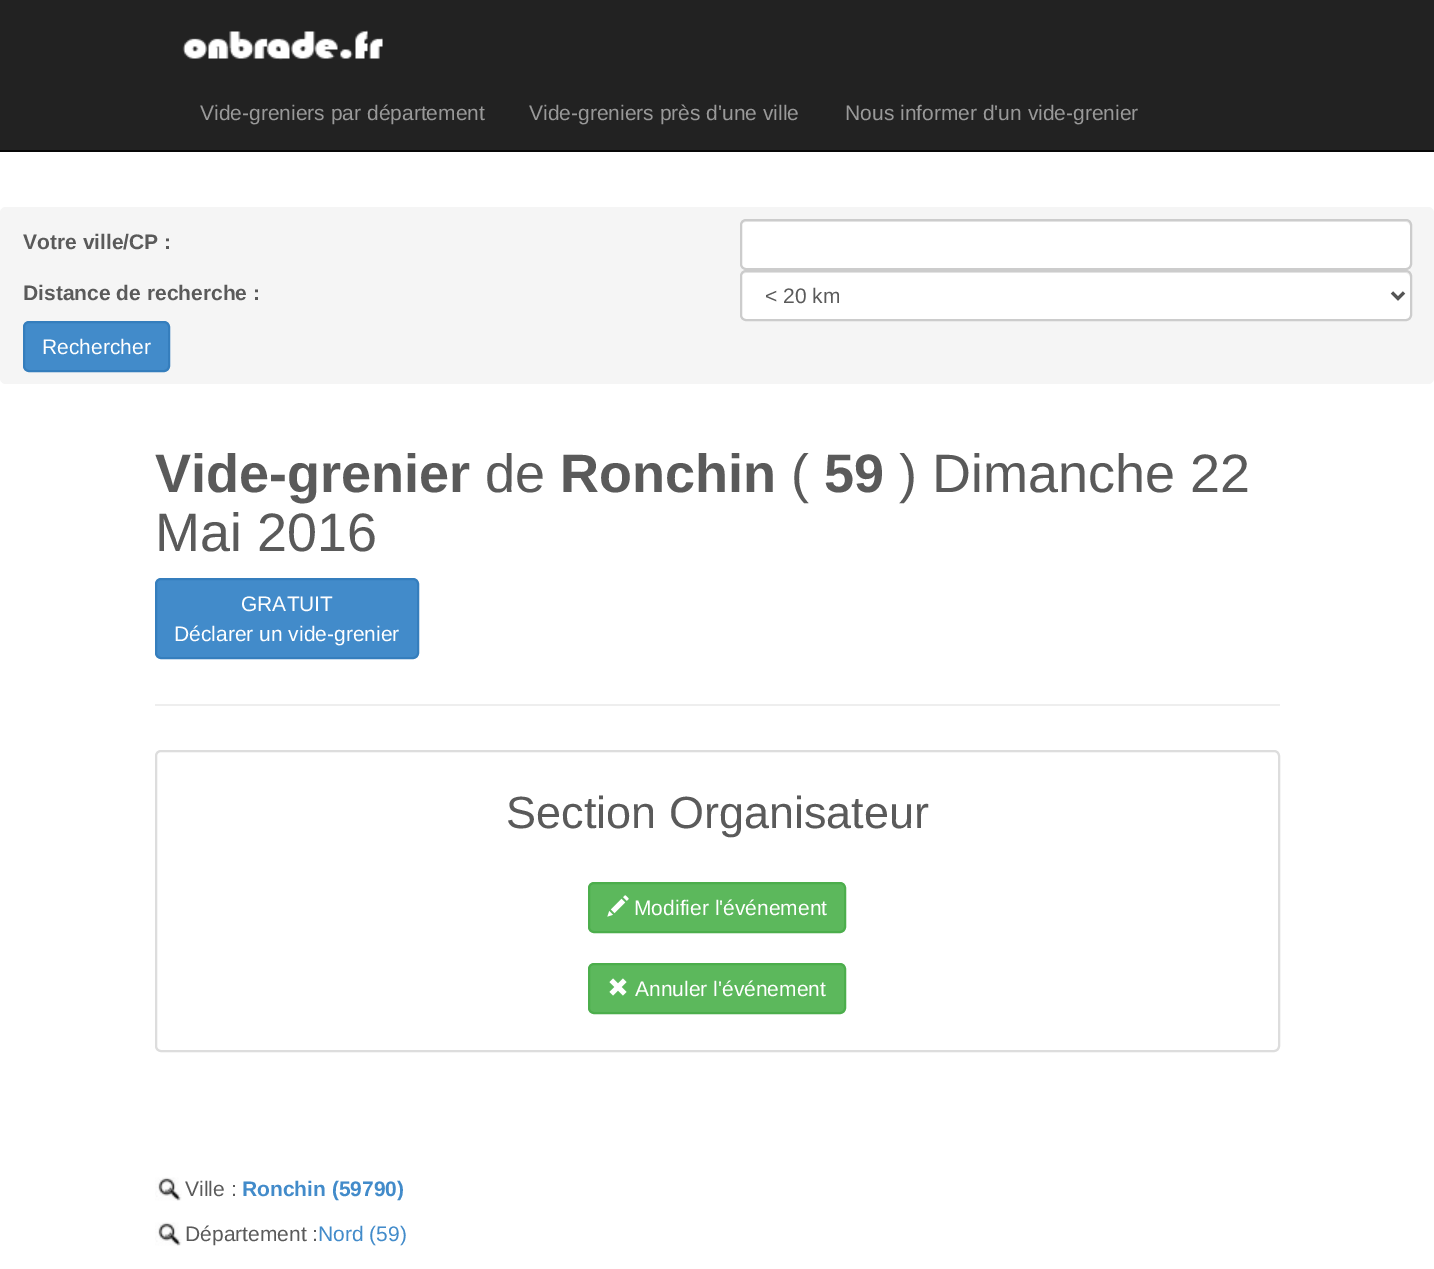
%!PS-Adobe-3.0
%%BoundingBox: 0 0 1434 1269
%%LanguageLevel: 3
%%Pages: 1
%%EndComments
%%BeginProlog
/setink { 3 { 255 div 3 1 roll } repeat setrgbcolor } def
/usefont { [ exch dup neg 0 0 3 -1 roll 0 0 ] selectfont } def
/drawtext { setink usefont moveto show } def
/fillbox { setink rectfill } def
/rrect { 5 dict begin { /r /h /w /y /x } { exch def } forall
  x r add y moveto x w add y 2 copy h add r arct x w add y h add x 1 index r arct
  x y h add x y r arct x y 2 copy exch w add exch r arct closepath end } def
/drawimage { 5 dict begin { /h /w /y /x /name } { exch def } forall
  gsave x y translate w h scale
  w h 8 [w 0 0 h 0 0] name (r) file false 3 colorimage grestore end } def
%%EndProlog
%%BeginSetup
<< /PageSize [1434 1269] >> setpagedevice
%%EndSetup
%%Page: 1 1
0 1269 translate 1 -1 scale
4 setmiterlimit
0 0 1434 1269 255 255 255 fillbox
0 0 1434 150 34 34 34 fillbox
0 150 1434 2 8 8 8 fillbox
(assets/img1.rgb) 182 30 201 30 drawimage
(Vide-greniers par département) 200 120 /LiberationSans-Regular 21 153 153 153 drawtext
(Vide-greniers près d'une ville) 529 120 /LiberationSans-Regular 21 153 153 153 drawtext
(Nous informer d'un vide-grenier) 845 120 /LiberationSans-Regular 21 153 153 153 drawtext
245 245 245 setink
0 207 1434 177 6 rrect fill
(Votre ville/CP :) 23 249 /LiberationSans-Bold 21 90 90 90 drawtext
255 255 255 setink
740 219 672 51 6 rrect fill
236 236 236 setink
746 222 moveto 1406 222 lineto 1408 222 1410 224 1410 226 curveto 1410 223 1408 221 1405 221 curveto 746 221 lineto 743 221 741 223 741 226 curveto 741 224 743 222 746 222 curveto closepath fill
204 204 204 setink
2 setlinewidth
741 220 670 49 5 rrect stroke
(Distance de recherche :) 23 300 /LiberationSans-Bold 21 90 90 90 drawtext
255 255 255 setink
740 270 672 51 6 rrect fill
236 236 236 setink
746 273 moveto 1406 273 lineto 1408 273 1410 275 1410 278 curveto 1410 277 lineto 1410 274 1408 272 1405 272 curveto 746 272 lineto 743 272 741 274 741 277 curveto 741 278 lineto 741 275 743 273 746 273 curveto closepath fill
204 204 204 setink
741 271 670 49 5 rrect stroke
85 85 85 setink
3 setlinewidth
1392 292.5 moveto 1398 298.5 lineto 1404 292.5 lineto stroke
(< 20 km) 765 303 /LiberationSans-Regular 21 90 90 90 drawtext
66 139 202 setink
24 322 145 49 5 rrect gsave fill grestore
53 126 189 setink
2 setlinewidth
stroke
(Rechercher) 42 354 /LiberationSans-Regular 21 255 255 255 drawtext
(Vide-grenier) 155 492 /LiberationSans-Bold 54 90 90 90 drawtext
(de) 485 492 /LiberationSans-Regular 54 90 90 90 drawtext
(Ronchin) 560 492 /LiberationSans-Bold 54 90 90 90 drawtext
(\() 791 492 /LiberationSans-Regular 54 90 90 90 drawtext
(59) 824 492 /LiberationSans-Bold 54 90 90 90 drawtext
(\) Dimanche 22) 899 492 /LiberationSans-Regular 54 90 90 90 drawtext
(Mai 2016) 155 551 /LiberationSans-Regular 54 90 90 90 drawtext
66 139 202 setink
156 579 262 79 5 rrect gsave fill grestore
53 126 189 setink
stroke
(GRATUIT) 241 611 /LiberationSans-Regular 21 255 255 255 drawtext
(Déclarer un vide-grenier) 174 641 /LiberationSans-Regular 21 255 255 255 drawtext
155 704 1125 2 238 238 238 fillbox
221 221 221 setink
156 751 1123 300 5 rrect stroke
(Section Organisateur) 506 828 /LiberationSans-Regular 45 90 90 90 drawtext
92 184 92 setink
589 883 256 49 5 rrect gsave fill grestore
76 174 76 setink
stroke
(assets/img2.rgb) 607 895 22 22 drawimage
(Modifier l'événement) 634 915 /LiberationSans-Regular 21 255 255 255 drawtext
92 184 92 setink
589 964 256 49 5 rrect gsave fill grestore
76 174 76 setink
stroke
(assets/img3.rgb) 609 978 18 18 drawimage
(Annuler l'événement) 635 996 /LiberationSans-Regular 21 255 255 255 drawtext
(assets/img4.rgb) 155 1177 27 24 drawimage
(Ville :) 185 1196 /LiberationSans-Regular 21 90 90 90 drawtext
(Ronchin \(59790\)) 242 1196 /LiberationSans-Bold 21 66 139 202 drawtext
(assets/img4.rgb) 155 1222 27 24 drawimage
(Département :) 185 1241 /LiberationSans-Regular 21 90 90 90 drawtext
(Nord \(59\)) 318 1241 /LiberationSans-Regular 21 66 139 202 drawtext
showpage
%%EOF
